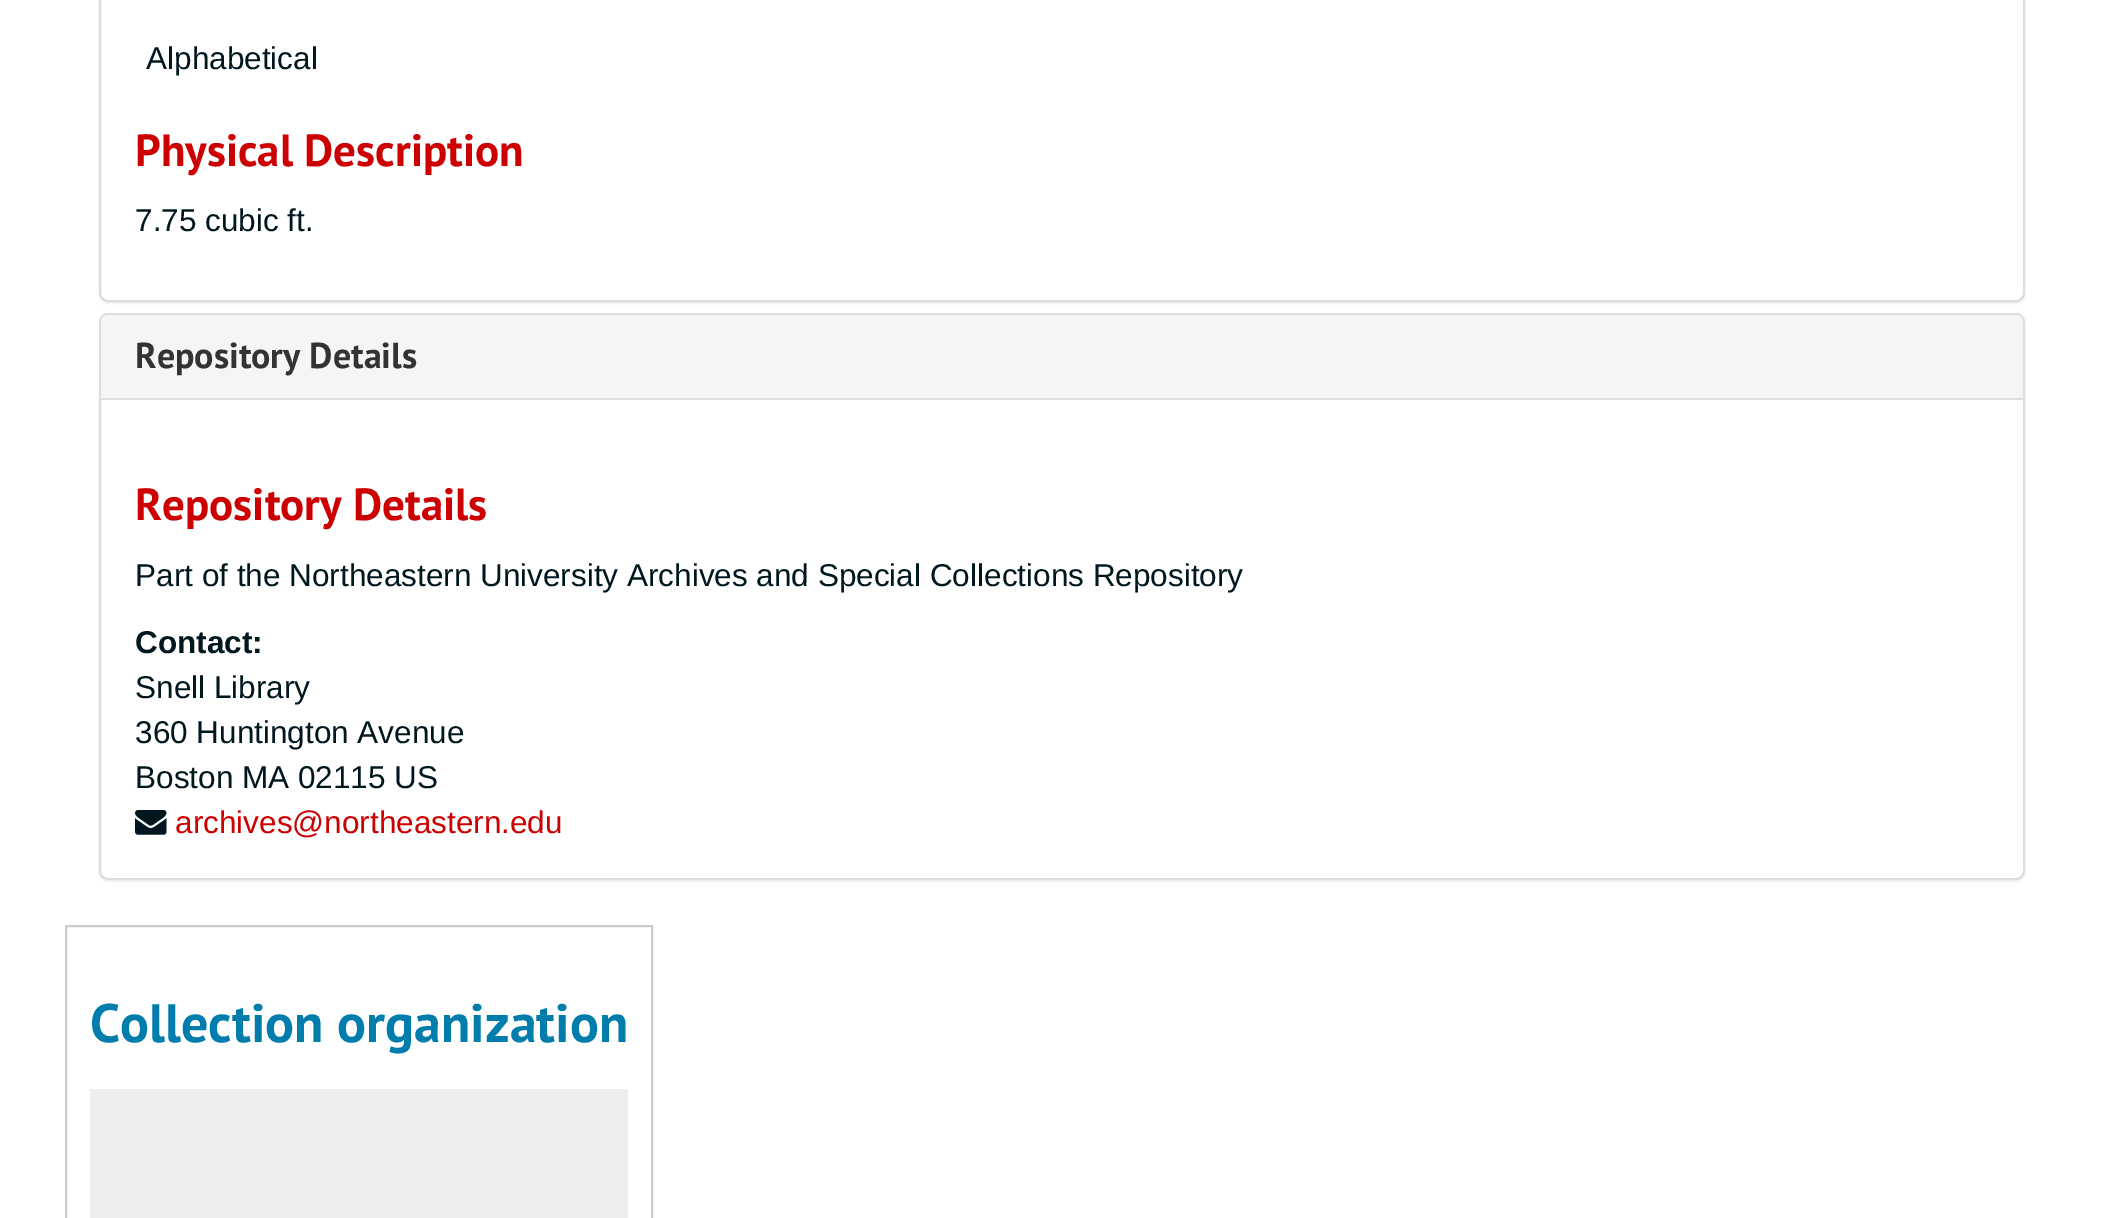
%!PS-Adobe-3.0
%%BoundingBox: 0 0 2122 1218
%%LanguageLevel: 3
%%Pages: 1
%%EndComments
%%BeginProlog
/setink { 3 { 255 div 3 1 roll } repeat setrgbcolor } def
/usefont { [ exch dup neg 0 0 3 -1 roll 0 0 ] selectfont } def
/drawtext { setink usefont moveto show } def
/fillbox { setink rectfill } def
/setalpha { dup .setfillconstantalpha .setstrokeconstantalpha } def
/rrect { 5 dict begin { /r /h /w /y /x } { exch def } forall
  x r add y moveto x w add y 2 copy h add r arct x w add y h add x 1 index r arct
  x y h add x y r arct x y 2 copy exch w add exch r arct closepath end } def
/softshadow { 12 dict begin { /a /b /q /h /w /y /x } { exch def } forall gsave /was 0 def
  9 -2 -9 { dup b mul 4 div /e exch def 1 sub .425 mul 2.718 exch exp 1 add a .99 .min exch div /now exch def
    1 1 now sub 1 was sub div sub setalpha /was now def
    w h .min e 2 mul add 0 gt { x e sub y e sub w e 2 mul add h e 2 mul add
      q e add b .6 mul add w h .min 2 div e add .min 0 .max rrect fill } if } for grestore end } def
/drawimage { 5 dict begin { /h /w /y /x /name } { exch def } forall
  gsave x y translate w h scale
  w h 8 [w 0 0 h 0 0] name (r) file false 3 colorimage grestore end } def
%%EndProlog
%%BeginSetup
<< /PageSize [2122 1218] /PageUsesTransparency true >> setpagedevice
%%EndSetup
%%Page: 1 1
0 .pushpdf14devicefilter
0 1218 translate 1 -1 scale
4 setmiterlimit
0 0 2122 1218 255 255 255 fillbox
0 0 0 setink
99 -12 1926 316 9 1 0.05 softshadow
255 255 255 setink
100 -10 1924 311 8 rrect gsave fill grestore
221 221 221 setink
2 setlinewidth
stroke
(Alphabetical) 146 69 /LiberationSans-Regular 31.5 0 23 31 drawtext
(Physical Description) 135 166 /PTSans-Bold 45 204 0 0 drawtext
(7.75 cubic ft.) 135 231 /LiberationSans-Regular 31.5 0 23 31 drawtext
0 0 0 setink
99 315 1926 567 9 1 0.05 softshadow
255 255 255 setink
100 314 1924 565 8 rrect gsave fill grestore
221 221 221 setink
stroke
245 245 245 setink
108 315 moveto 2016 315 lineto 2020 315 2023 318 2023 322 curveto 2023 398 lineto 101 398 lineto 101 322 lineto 101 318 104 315 108 315 curveto closepath fill
(Repository Details) 135 368 /PTSans-Bold 36 51 51 51 drawtext
101 398 1922 2 221 221 221 fillbox
(Repository Details) 135 520 /PTSans-Bold 45 204 0 0 drawtext
(Part of the Northeastern University Archives and Special Collections Repository) 135 586 /LiberationSans-Regular 31.5 0 23 31 drawtext
(Contact:) 135 653 /LiberationSans-Bold 31.5 0 23 31 drawtext
(Snell Library) 135 698 /LiberationSans-Regular 31.5 0 23 31 drawtext
(360 Huntington Avenue) 135 743 /LiberationSans-Regular 31.5 0 23 31 drawtext
(Boston MA 02115 US) 135 788 /LiberationSans-Regular 31.5 0 23 31 drawtext
(assets/img1.rgb) 135 810 32 25 drawimage
(archives@northeastern.edu) 175 833 /LiberationSans-Regular 31.5 204 0 0 drawtext
204 204 204 setink
66 926 586 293 rectstroke
(Collection organization) 90 1042 /PTSans-Bold 54 0 124 173 drawtext
90 1089 538 129 238 238 238 fillbox
.poppdf14devicefilter showpage
%%EOF
